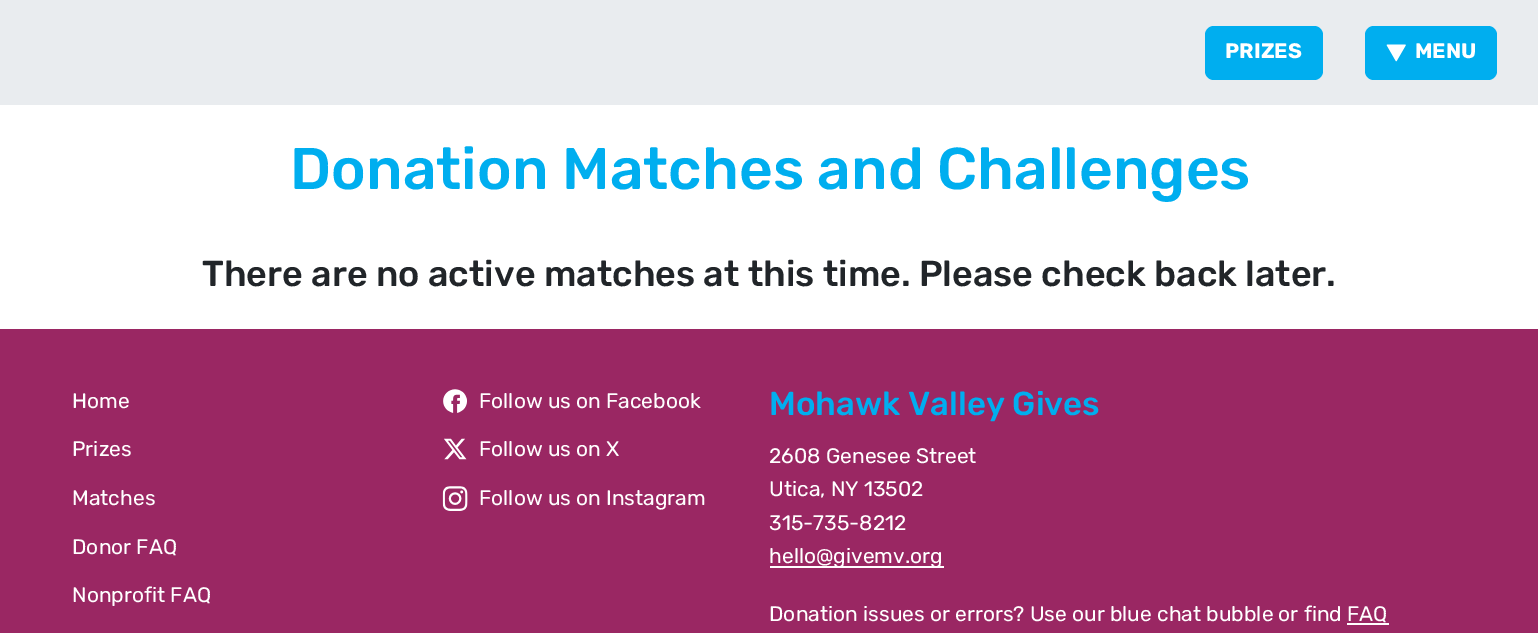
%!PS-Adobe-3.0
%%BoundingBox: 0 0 1538 633
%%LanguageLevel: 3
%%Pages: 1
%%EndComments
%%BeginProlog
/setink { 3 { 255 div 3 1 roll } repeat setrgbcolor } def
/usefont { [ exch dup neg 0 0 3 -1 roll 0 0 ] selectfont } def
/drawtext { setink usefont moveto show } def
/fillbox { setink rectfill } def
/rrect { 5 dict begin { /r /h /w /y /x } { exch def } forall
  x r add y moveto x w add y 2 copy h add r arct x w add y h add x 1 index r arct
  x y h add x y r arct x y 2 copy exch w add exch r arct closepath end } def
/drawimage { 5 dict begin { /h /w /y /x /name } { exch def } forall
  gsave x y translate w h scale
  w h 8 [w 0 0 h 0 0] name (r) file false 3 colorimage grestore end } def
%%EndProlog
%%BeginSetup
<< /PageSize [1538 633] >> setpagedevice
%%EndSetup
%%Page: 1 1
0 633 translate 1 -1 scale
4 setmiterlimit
0 0 1538 633 255 255 255 fillbox
0 0 1538 105 233 236 239 fillbox
0 174 239 setink
1205 26 118 54 9 rrect fill
(PRIZES) 1225 58 /Rubik-Bold 21 255 255 255 drawtext
0 174 239 setink
1365 26 132 54 9 rrect fill
(assets/img1.rgb) 1386 44 20 18 drawimage
(MENU) 1415 58 /Rubik-Bold 21 255 255 255 drawtext
(Donation Matches and Challenges) 290 189 /Rubik-Medium 58.75 0 174 239 drawtext
(There are no active matches at this time. Please check back later.) 202 286 /Rubik-Medium 36 33 37 41 drawtext
0 329 1538 304 154 39 99 fillbox
(Home) 72 408 /Rubik-Regular 21 255 255 255 drawtext
(Prizes) 72 456 /Rubik-Regular 21 255 255 255 drawtext
(Matches) 72 505 /Rubik-Regular 21 255 255 255 drawtext
(Donor FAQ) 72 554 /Rubik-Regular 21 255 255 255 drawtext
(Nonprofit FAQ) 72 602 /Rubik-Regular 21 255 255 255 drawtext
(assets/img2.rgb) 443 389 24 24 drawimage
(Follow us on Facebook) 479 408 /Rubik-Regular 21 255 255 255 drawtext
(assets/img3.rgb) 444 438 23 22 drawimage
(Follow us on X) 479 456 /Rubik-Regular 21 255 255 255 drawtext
(assets/img4.rgb) 442 486 26 25 drawimage
(Follow us on Instagram) 479 505 /Rubik-Regular 21 255 255 255 drawtext
(Mohawk Valley Gives) 769 415 /Rubik-Medium 33.1 0 174 239 drawtext
(2608 Genesee Street) 769 463 /Rubik-Regular 21 255 255 255 drawtext
(Utica, NY 13502) 769 496 /Rubik-Regular 21 255 255 255 drawtext
(315-735-8212) 769 530 /Rubik-Regular 21 255 255 255 drawtext
770 566 174 2 255 255 255 fillbox
(hello@givemv.org) 769 563 /Rubik-Regular 21 255 255 255 drawtext
(Donation issues or errors? Use our blue chat bubble or find FAQ) 769 621 /Rubik-Regular 21 255 255 255 drawtext
1347 623 42 2 255 255 255 fillbox
showpage
%%EOF
